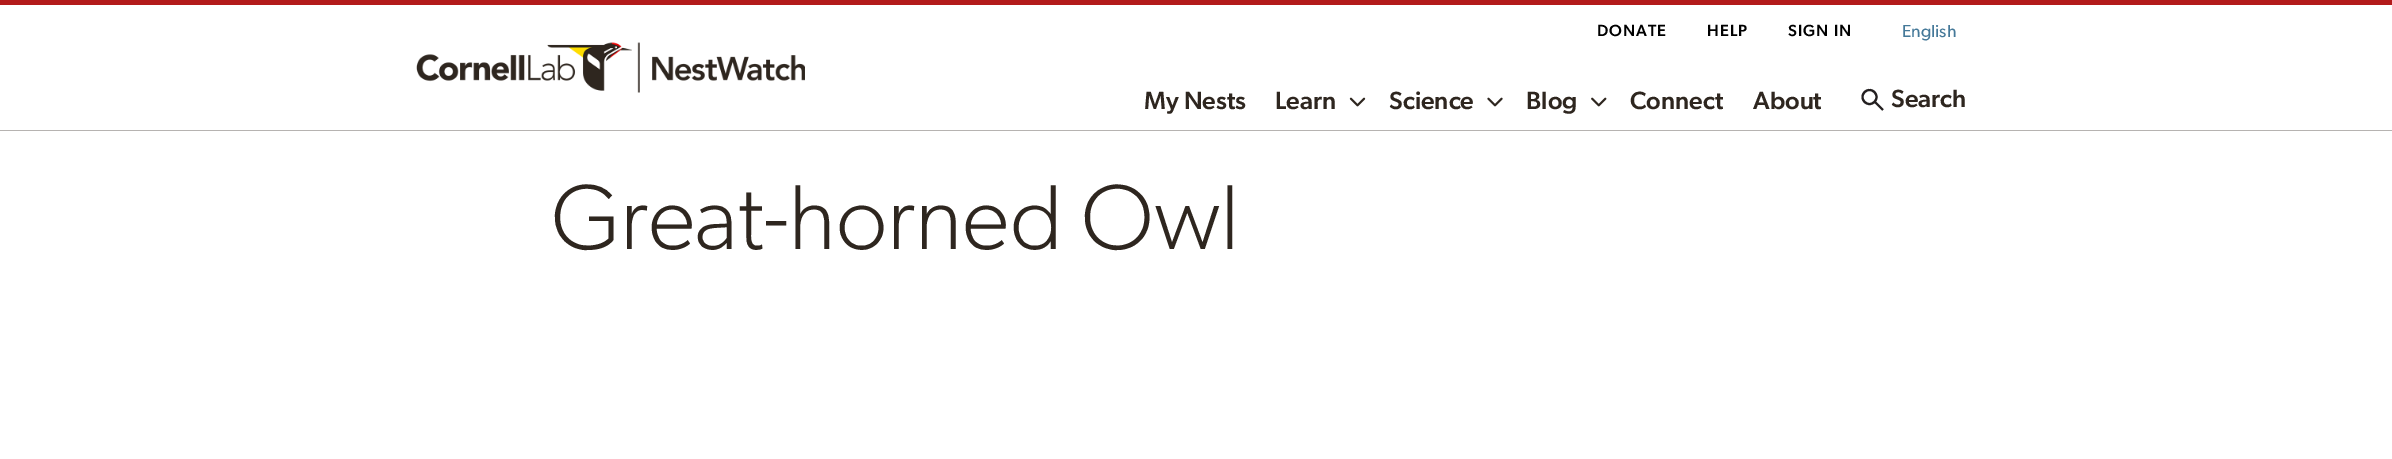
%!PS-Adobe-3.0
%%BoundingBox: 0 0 2392 459
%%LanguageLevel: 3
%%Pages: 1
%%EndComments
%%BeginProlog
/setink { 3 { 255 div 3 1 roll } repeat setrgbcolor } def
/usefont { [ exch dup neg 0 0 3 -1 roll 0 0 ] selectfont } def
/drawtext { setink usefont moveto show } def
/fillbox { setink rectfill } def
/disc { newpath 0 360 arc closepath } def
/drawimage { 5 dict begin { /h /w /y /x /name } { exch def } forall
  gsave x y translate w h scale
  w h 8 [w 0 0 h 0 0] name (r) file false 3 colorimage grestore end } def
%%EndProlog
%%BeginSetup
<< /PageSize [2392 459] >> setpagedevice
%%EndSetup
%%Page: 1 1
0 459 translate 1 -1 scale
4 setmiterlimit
0 0 2392 459 255 255 255 fillbox
0 0 2392 5 179 27 27 fillbox
0 130 2392 1 182 179 177 fillbox
/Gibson-Medium 16.25 usefont
0 0 0 setink
1597 36 moveto 1 0 (DONATE) ashow
1707 36 moveto 1 0 (HELP) ashow
1788 36 moveto 1 0 (SIGN IN) ashow
(English) 1902 37 /Gibson-Regular 17.5 69 121 153 drawtext
(assets/img1.rgb) 416 42 389 51 drawimage
(My Nests) 1144 109 /Gibson-Medium 25 46 38 31 drawtext
(Learn) 1275 109 /Gibson-Medium 25 46 38 31 drawtext
(assets/img2.rgb) 1349 97 17 10 drawimage
(Science) 1389 109 /Gibson-Medium 25 46 38 31 drawtext
(assets/img3.rgb) 1487 97 16 10 drawimage
(Blog) 1526 109 /Gibson-Medium 25 46 38 31 drawtext
(assets/img4.rgb) 1591 97 16 10 drawimage
(Connect) 1630 109 /Gibson-Medium 25 46 38 31 drawtext
(About) 1753 109 /Gibson-Medium 25 46 38 31 drawtext
35 31 32 setink
2.1 setlinewidth
1869.5 97 7 disc stroke
1874.5 101.5 moveto 1883 110 lineto stroke
(Search) 1891 107 /Gibson-Medium 25 46 38 31 drawtext
(Great-horned Owl) 551 249 /Gibson-Light 92.5 46 38 31 drawtext
showpage
%%EOF
